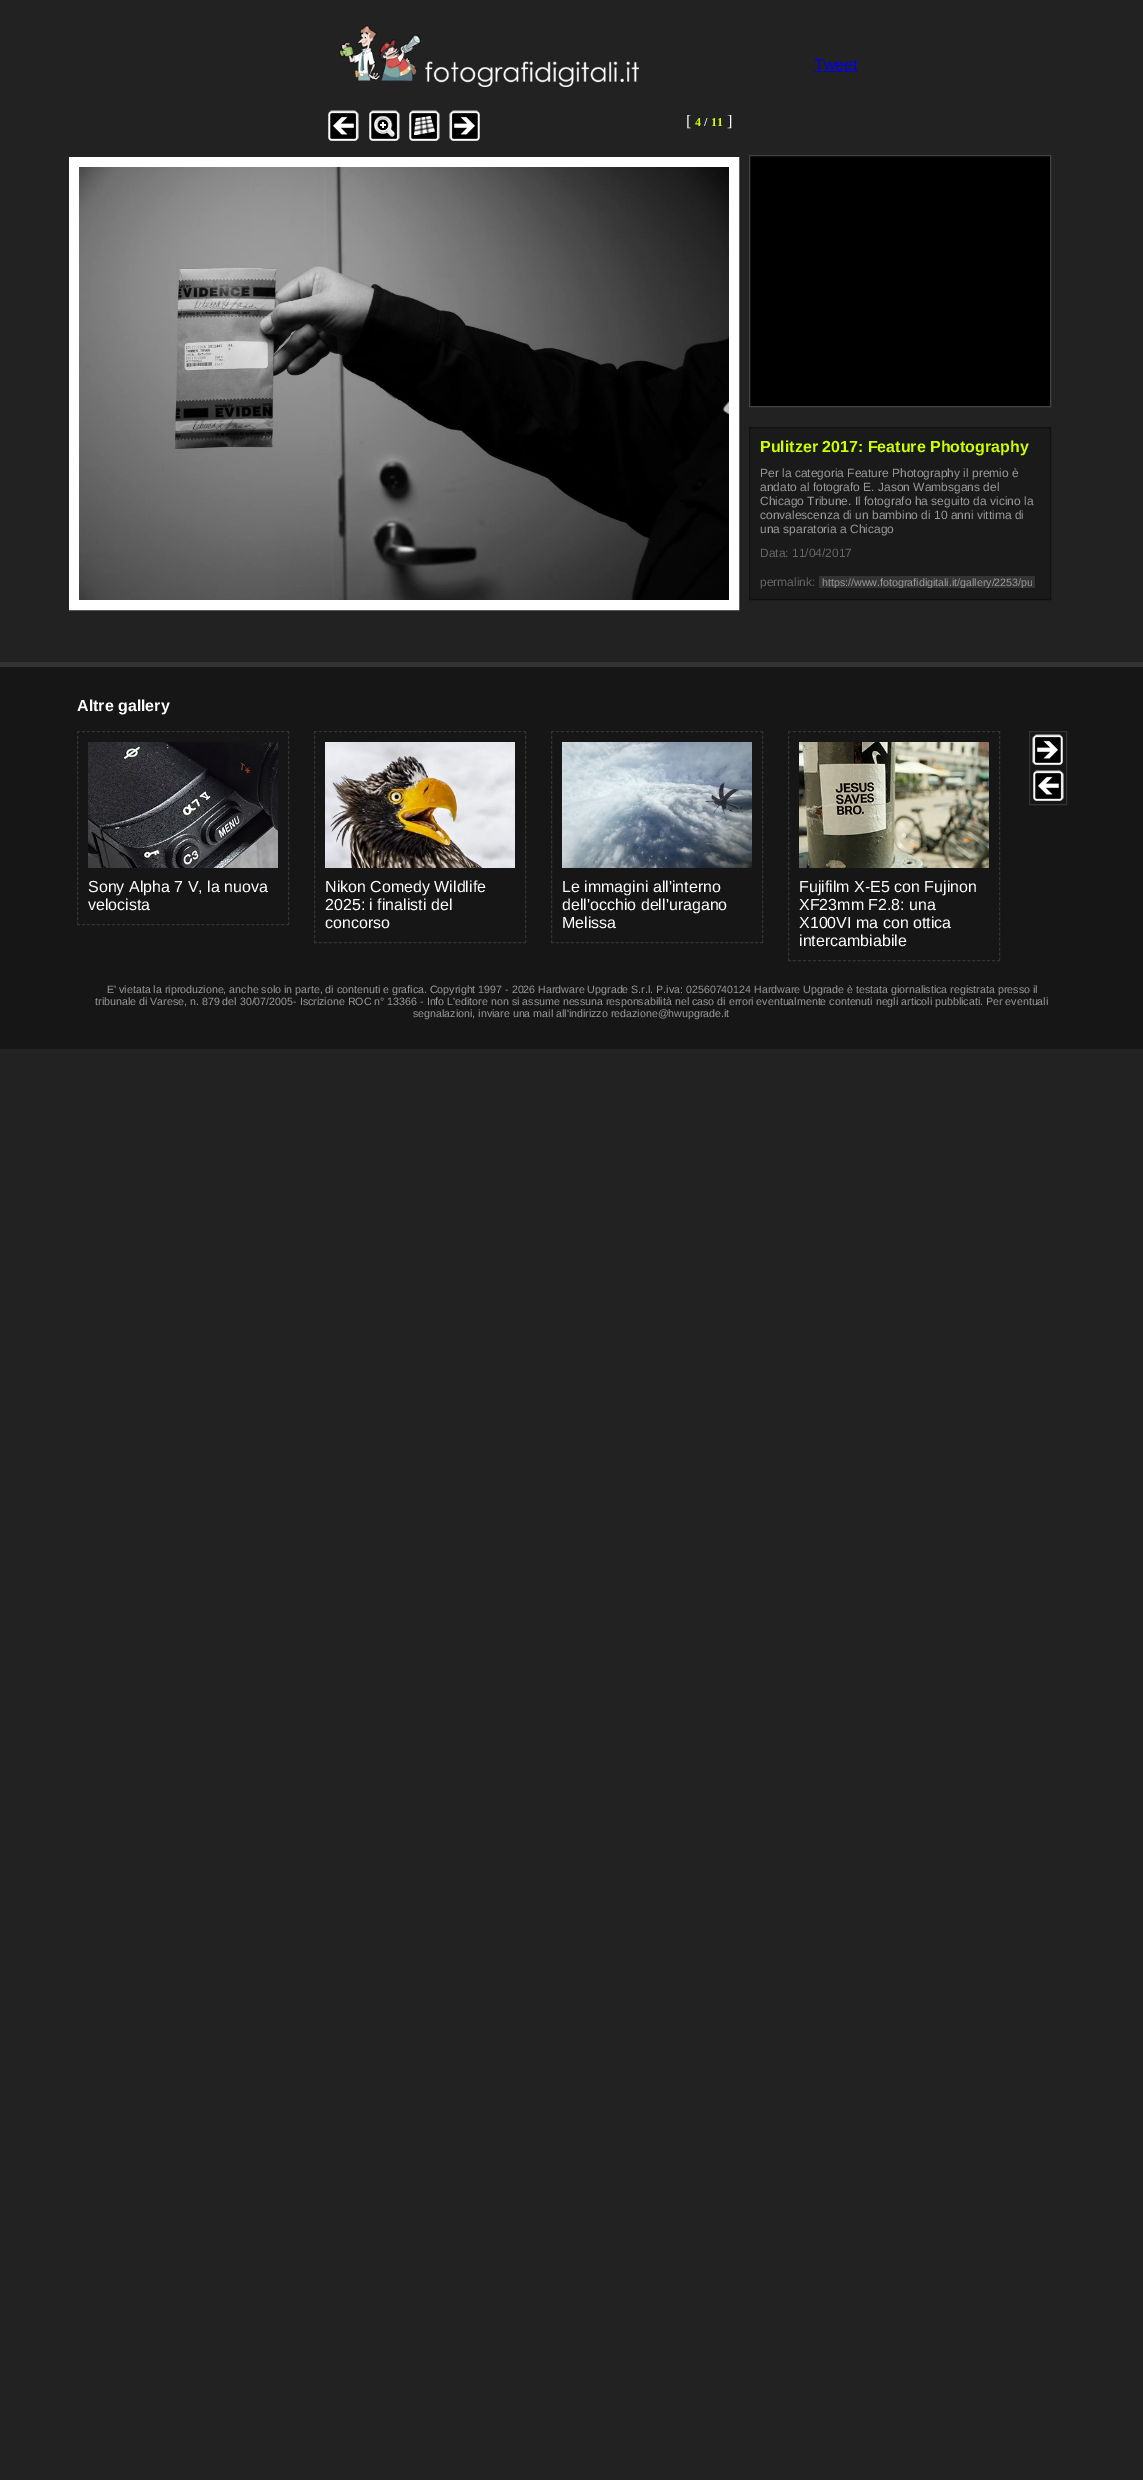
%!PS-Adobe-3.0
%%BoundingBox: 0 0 1143 2480
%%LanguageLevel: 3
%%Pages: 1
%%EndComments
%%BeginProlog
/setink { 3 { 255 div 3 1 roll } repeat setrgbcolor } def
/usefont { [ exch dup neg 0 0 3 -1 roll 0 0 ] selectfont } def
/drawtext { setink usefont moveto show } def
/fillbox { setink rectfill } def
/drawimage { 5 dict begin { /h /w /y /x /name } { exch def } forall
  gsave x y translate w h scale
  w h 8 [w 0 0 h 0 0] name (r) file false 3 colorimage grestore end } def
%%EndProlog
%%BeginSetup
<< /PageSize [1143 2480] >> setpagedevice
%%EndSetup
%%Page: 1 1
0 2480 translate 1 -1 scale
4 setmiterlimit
0 0 1143 2480 34 34 34 fillbox
(assets/img1.rgb) 339 25 300 62 drawimage
(Tweet) 814 70 /LiberationSans-Regular 16 0 0 238 drawtext
814 71 44 1 0 0 238 fillbox
0 0 0 setink
749.5 155.5 moveto 1050.5 155.5 lineto 1050.5 406.5 lineto 749.5 406.5 lineto closepath gsave fill grestore
68 68 68 setink
stroke
26 26 26 setink
749.5 427.5 moveto 1050.5 427.5 lineto 1050.5 599.5 lineto 749.5 599.5 lineto closepath gsave fill grestore
17 17 17 setink
stroke
(Pulitzer 2017: Feature Photography) 760 452 /LiberationSans-Bold 16 204 255 0 drawtext
(Per la categoria Feature Photography il premio è) 760 477 /LiberationSans-Regular 12 153 153 153 drawtext
(andato al fotografo E. Jason Wambsgans del) 760 491 /LiberationSans-Regular 12 153 153 153 drawtext
(Chicago Tribune. Il fotografo ha seguito da vicino la) 760 505 /LiberationSans-Regular 12 153 153 153 drawtext
(convalescenza di un bambino di 10 anni vittima di) 760 519 /LiberationSans-Regular 12 153 153 153 drawtext
(una sparatoria a Chicago) 760 533 /LiberationSans-Regular 12 153 153 153 drawtext
(Data: 11/04/2017) 760 557 /LiberationSans-Regular 12 102 102 102 drawtext
(permalink:) 760 586 /LiberationSans-Regular 12 102 102 102 drawtext
819 576 216 12 51 51 51 fillbox
gsave
822 576 210 12 rectclip
(https://www.fotografidigitali.it/gallery/2253/pu) 822 586 /LiberationSans-Regular 10.67 153 153 153 drawtext
grestore
(assets/img2.rgb) 328 110 31 31 drawimage
(assets/img3.rgb) 369 110 31 31 drawimage
(assets/img4.rgb) 409 110 31 31 drawimage
(assets/img5.rgb) 449 110 31 31 drawimage
([) 686 126 /LiberationSerif-Regular 16 255 255 255 drawtext
(4) 695 126 /LiberationSerif-Bold 12 204 255 0 drawtext
(/) 704 126 /LiberationSerif-Bold 12 255 255 255 drawtext
(11) 711 126 /LiberationSerif-Bold 12 204 255 0 drawtext
(]) 727 126 /LiberationSerif-Regular 16 255 255 255 drawtext
10 setlinewidth
74 162 660 443 rectstroke
(assets/img6.rgb) 79 167 650 433 drawimage
0 667 1143 382 22 22 22 fillbox
0 662 1143 5 51 51 51 fillbox
(Altre gallery) 77 711 /LiberationSans-Bold 16 255 255 255 drawtext
51 51 51 setink
1 setlinewidth
1029.5 731.5 37 73 rectstroke
(assets/img7.rgb) 1032 734 31 31 drawimage
(assets/img8.rgb) 1033 770 31 31 drawimage
[3 1.98] 0 setdash
77 731.5 moveto 289 731.5 lineto stroke
[3 2.03] 0 setdash
288.5 731 moveto 288.5 925 lineto stroke
[3 1.98] 0 setdash
77 924.5 moveto 289 924.5 lineto stroke
[3 2.03] 0 setdash
77.5 731 moveto 77.5 925 lineto stroke
(assets/img9.rgb) 88 742 190 126 drawimage
(Sony Alpha 7 V, la nuova) 88 892 /LiberationSans-Regular 16 255 255 255 drawtext
(velocista) 88 910 /LiberationSans-Regular 16 255 255 255 drawtext
51 51 51 setink
[3 1.98] 0 setdash
314 731.5 moveto 526 731.5 lineto stroke
525.5 731 moveto 525.5 943 lineto stroke
314 942.5 moveto 526 942.5 lineto stroke
314.5 731 moveto 314.5 943 lineto stroke
(assets/img10.rgb) 325 742 190 126 drawimage
(Nikon Comedy Wildlife) 325 892 /LiberationSans-Regular 16 255 255 255 drawtext
(2025: i finalisti del) 325 910 /LiberationSans-Regular 16 255 255 255 drawtext
(concorso) 325 928 /LiberationSans-Regular 16 255 255 255 drawtext
51 51 51 setink
551 731.5 moveto 763 731.5 lineto stroke
762.5 731 moveto 762.5 943 lineto stroke
551 942.5 moveto 763 942.5 lineto stroke
551.5 731 moveto 551.5 943 lineto stroke
(assets/img11.rgb) 562 742 190 126 drawimage
(Le immagini all'interno) 562 892 /LiberationSans-Regular 16 255 255 255 drawtext
(dell'occhio dell'uragano) 562 910 /LiberationSans-Regular 16 255 255 255 drawtext
(Melissa) 562 928 /LiberationSans-Regular 16 255 255 255 drawtext
51 51 51 setink
788 731.5 moveto 1000 731.5 lineto stroke
[3 2.04] 0 setdash
999.5 731 moveto 999.5 961 lineto stroke
[3 1.98] 0 setdash
788 960.5 moveto 1000 960.5 lineto stroke
[3 2.04] 0 setdash
788.5 731 moveto 788.5 961 lineto stroke
(assets/img12.rgb) 799 742 190 126 drawimage
(Fujifilm X-E5 con Fujinon) 799 892 /LiberationSans-Regular 16 255 255 255 drawtext
(XF23mm F2.8: una) 799 910 /LiberationSans-Regular 16 255 255 255 drawtext
(X100VI ma con ottica) 799 928 /LiberationSans-Regular 16 255 255 255 drawtext
(intercambiabile) 799 946 /LiberationSans-Regular 16 255 255 255 drawtext
(E' vietata la riproduzione, anche solo in parte, di contenuti e grafica. Copyright 1997 - 2026 Hardware Upgrade S.r.l. P.iva: 02560740124 Hardware Upgrade è testata giornalistica registrata presso il) 107 993 /LiberationSans-Regular 10.67 153 153 153 drawtext
(tribunale di Varese, n. 879 del 30/07/2005- Iscrizione ROC n° 13366 - Info L'editore non si assume nessuna responsabilità nel caso di errori eventualmente contenuti negli articoli pubblicati. Per eventuali) 95 1005 /LiberationSans-Regular 10.67 153 153 153 drawtext
(segnalazioni, inviare una mail all'indirizzo redazione@hwupgrade.it) 413 1017 /LiberationSans-Regular 10.67 153 153 153 drawtext
showpage
%%EOF
